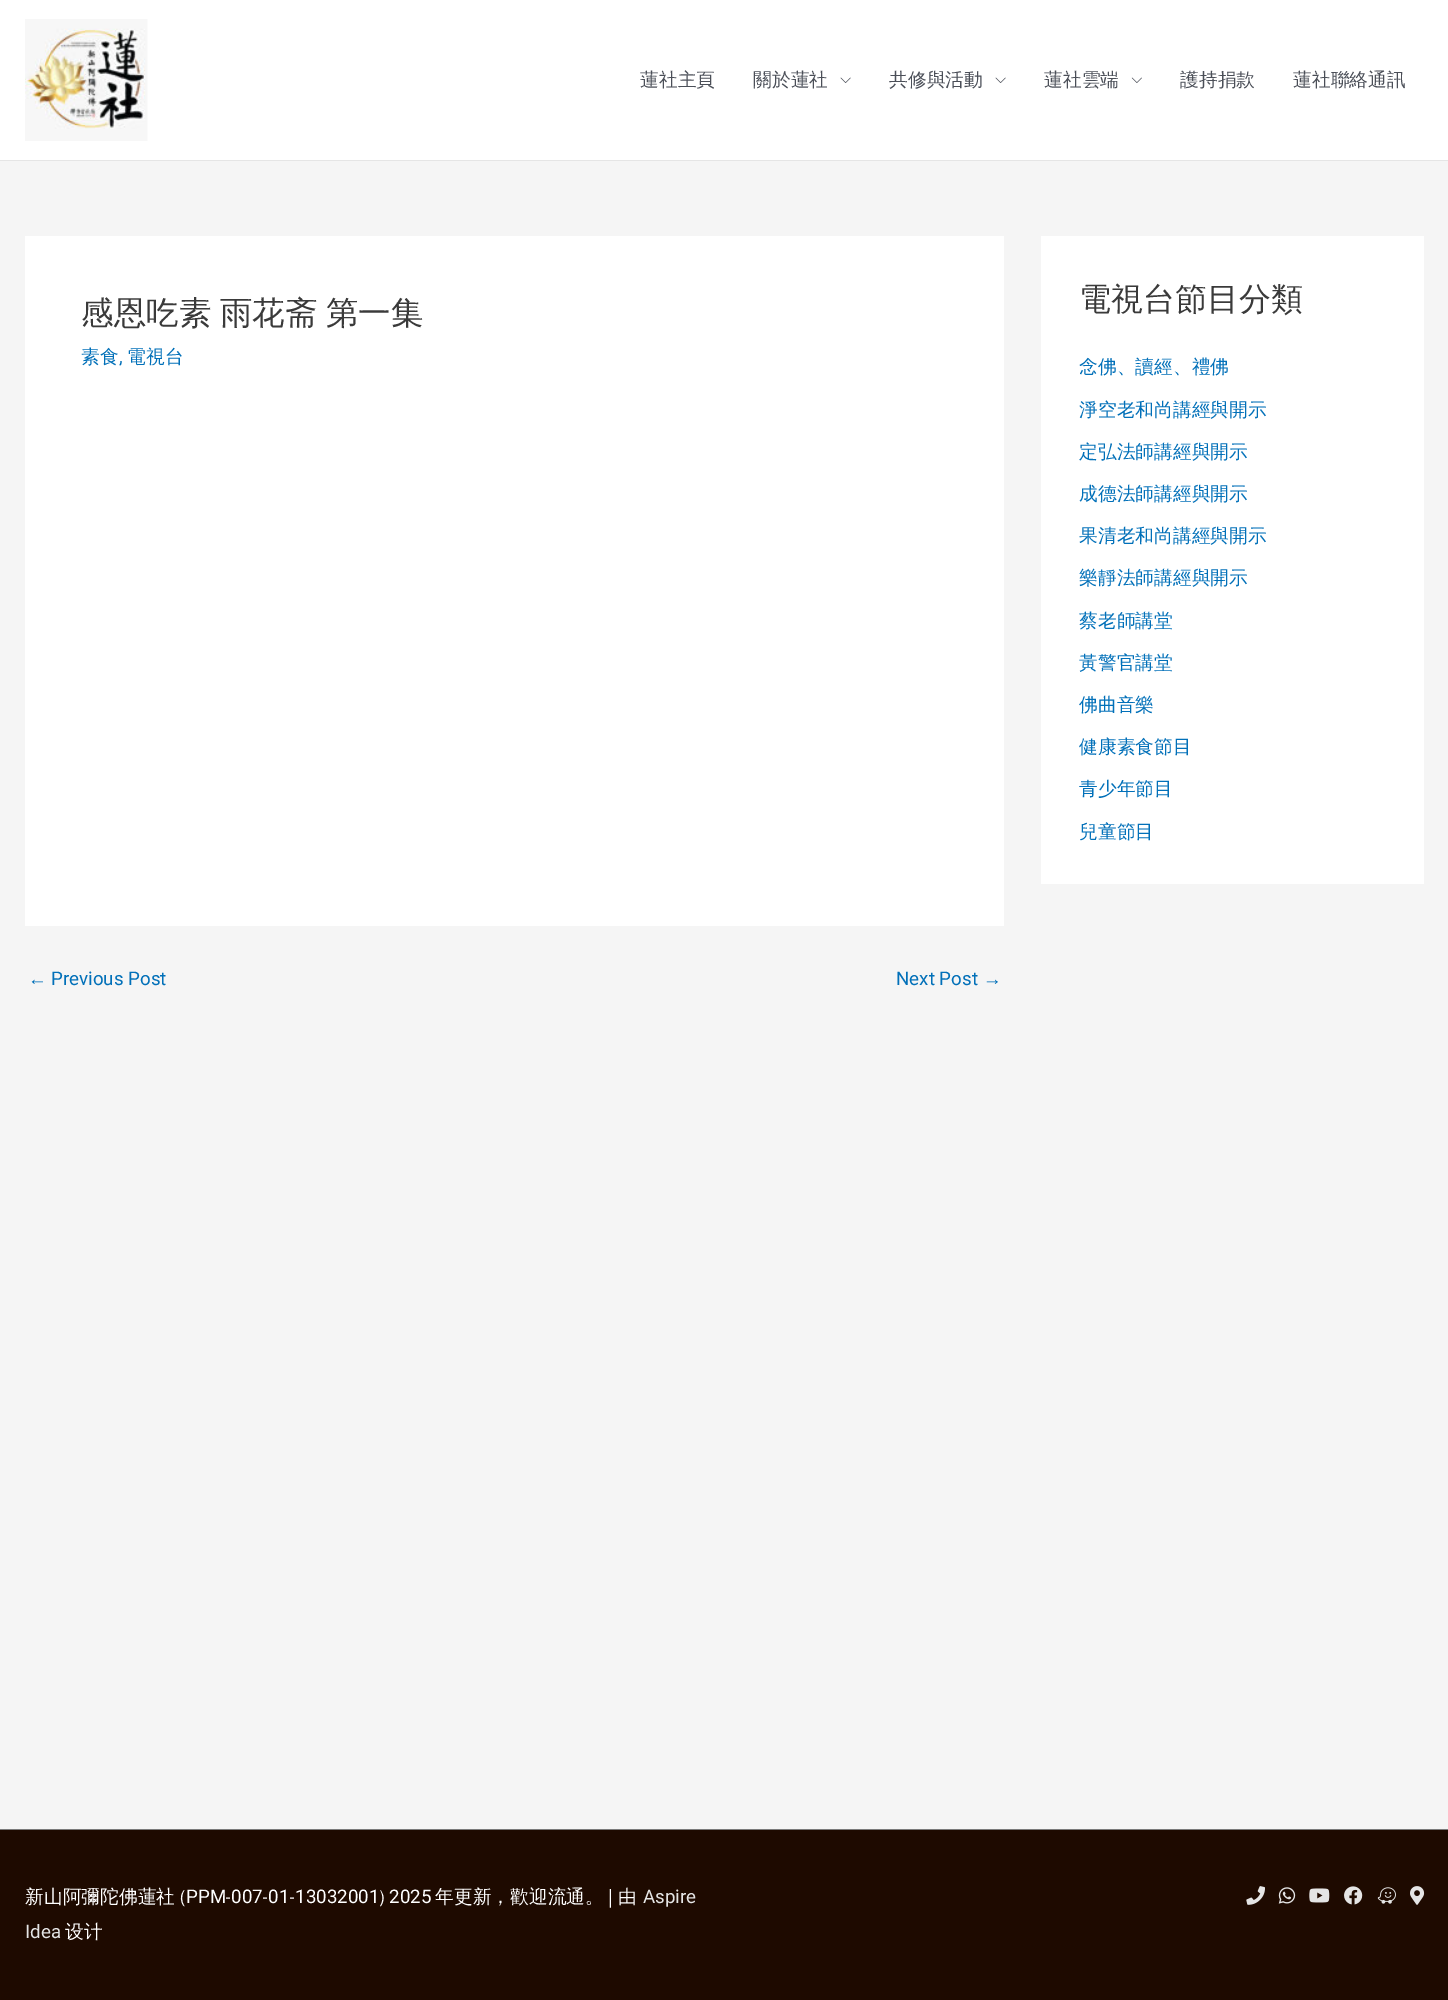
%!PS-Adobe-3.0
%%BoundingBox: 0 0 1448 2000
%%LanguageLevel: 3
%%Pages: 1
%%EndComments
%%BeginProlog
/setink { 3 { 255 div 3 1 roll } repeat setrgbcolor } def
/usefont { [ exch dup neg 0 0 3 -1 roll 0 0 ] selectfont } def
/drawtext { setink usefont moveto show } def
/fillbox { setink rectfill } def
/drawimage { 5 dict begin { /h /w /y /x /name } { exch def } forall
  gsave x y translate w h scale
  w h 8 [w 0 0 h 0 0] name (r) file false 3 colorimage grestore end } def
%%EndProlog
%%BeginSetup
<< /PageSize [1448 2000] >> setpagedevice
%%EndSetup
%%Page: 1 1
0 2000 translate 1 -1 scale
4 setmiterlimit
0 0 1448 2000 245 245 245 fillbox
0 0 1448 160 255 255 255 fillbox
0 160 1448 1 229 229 229 fillbox
(assets/img1.rgb) 25 19 123 122 drawimage
(蓮社主頁) 640 86 /WenQuanYiZenHei-Medium 18.75 75 79 88 drawtext
(關於蓮社) 753 86 /WenQuanYiZenHei-Medium 18.75 75 79 88 drawtext
(assets/img2.rgb) 840 77 11 6 drawimage
(共修與活動) 889 86 /WenQuanYiZenHei-Medium 18.75 75 79 88 drawtext
(assets/img2.rgb) 995 77 11 6 drawimage
(蓮社雲端) 1044 86 /WenQuanYiZenHei-Medium 18.75 75 79 88 drawtext
(assets/img3.rgb) 1131 77 11 6 drawimage
(護持捐款) 1180 86 /WenQuanYiZenHei-Medium 18.75 75 79 88 drawtext
(蓮社聯絡通訊) 1293 86 /WenQuanYiZenHei-Medium 18.75 75 79 88 drawtext
25 236 979 690 255 255 255 fillbox
/WenQuanYiZenHei-Medium 32.5 usefont
58 58 58 setink
81 324 moveto -1 0 32 (感恩吃素 雨花斋 第一集) widthshow
(素食) 81 363 /WenQuanYiZenHei-Medium 18.75 1 112 185 drawtext
(,) 119 363 /Roboto-Regular 18.75 1 112 185 drawtext
(電視台) 127 363 /WenQuanYiZenHei-Medium 18.75 1 112 185 drawtext
(←) 28 985 /LiberationSans-Regular 18.75 1 112 185 drawtext
(Previous Post) 51 985 /Roboto-Regular 18.75 1 112 185 drawtext
(Next Post) 896 985 /Roboto-Regular 18.75 1 112 185 drawtext
(→) 983 985 /LiberationSans-Regular 18.75 1 112 185 drawtext
1041 236 383 648 255 255 255 fillbox
(電視台節目分類) 1079 310 /WenQuanYiZenHei-Medium 32 58 58 58 drawtext
(念佛、讀經、禮佛) 1079 373 /WenQuanYiZenHei-Medium 18.75 1 112 185 drawtext
(淨空老和尚講經與開示) 1079 416 /WenQuanYiZenHei-Medium 18.75 1 112 185 drawtext
(定弘法師講經與開示) 1079 458 /WenQuanYiZenHei-Medium 18.75 1 112 185 drawtext
(成德法師講經與開示) 1079 500 /WenQuanYiZenHei-Medium 18.75 1 112 185 drawtext
(果清老和尚講經與開示) 1079 542 /WenQuanYiZenHei-Medium 18.75 1 112 185 drawtext
(樂靜法師講經與開示) 1079 584 /WenQuanYiZenHei-Medium 18.75 1 112 185 drawtext
(蔡老師講堂) 1079 627 /WenQuanYiZenHei-Medium 18.75 1 112 185 drawtext
(黃警官講堂) 1079 669 /WenQuanYiZenHei-Medium 18.75 1 112 185 drawtext
(佛曲音樂) 1079 711 /WenQuanYiZenHei-Medium 18.75 1 112 185 drawtext
(健康素食節目) 1079 753 /WenQuanYiZenHei-Medium 18.75 1 112 185 drawtext
(青少年節目) 1079 795 /WenQuanYiZenHei-Medium 18.75 1 112 185 drawtext
(兒童節目) 1079 838 /WenQuanYiZenHei-Medium 18.75 1 112 185 drawtext
0 1829 1448 1 122 122 122 fillbox
0 1830 1448 170 30 10 0 fillbox
255 255 255 setink
25 1903 moveto -1 0 32 (新山阿彌陀佛蓮社 \() widthshow
(PPM) 186 1903 /Roboto-Regular 18.75 255 255 255 drawtext
(-) 226 1903 /WenQuanYiZenHei-Medium 18.75 255 255 255 drawtext
(007) 231 1903 /Roboto-Regular 18.75 255 255 255 drawtext
(-) 263 1903 /WenQuanYiZenHei-Medium 18.75 255 255 255 drawtext
(01) 268 1903 /Roboto-Regular 18.75 255 255 255 drawtext
(-) 290 1903 /WenQuanYiZenHei-Medium 18.75 255 255 255 drawtext
(13032001) 295 1903 /Roboto-Regular 18.75 255 255 255 drawtext
(\)) 379 1903 /WenQuanYiZenHei-Medium 18.75 255 255 255 drawtext
(2025) 389 1903 /Roboto-Regular 18.75 255 255 255 drawtext
/WenQuanYiZenHei-Medium 18.75 usefont
435 1903 moveto -1 0 32 (年更新，歡迎流通。 | 由) widthshow
(Aspire) 643 1903 /Roboto-Regular 18.75 229 229 229 drawtext
(Idea) 25 1938 /Roboto-Regular 18.75 229 229 229 drawtext
(设计) 65 1938 /WenQuanYiZenHei-Medium 18.75 255 255 255 drawtext
(assets/img4.rgb) 1246 1886 19 19 drawimage
(assets/img5.rgb) 1278 1887 18 17 drawimage
(assets/img6.rgb) 1309 1888 21 15 drawimage
(assets/img7.rgb) 1344 1886 19 19 drawimage
(assets/img8.rgb) 1377 1887 19 17 drawimage
(assets/img9.rgb) 1410 1886 15 19 drawimage
showpage
%%EOF
